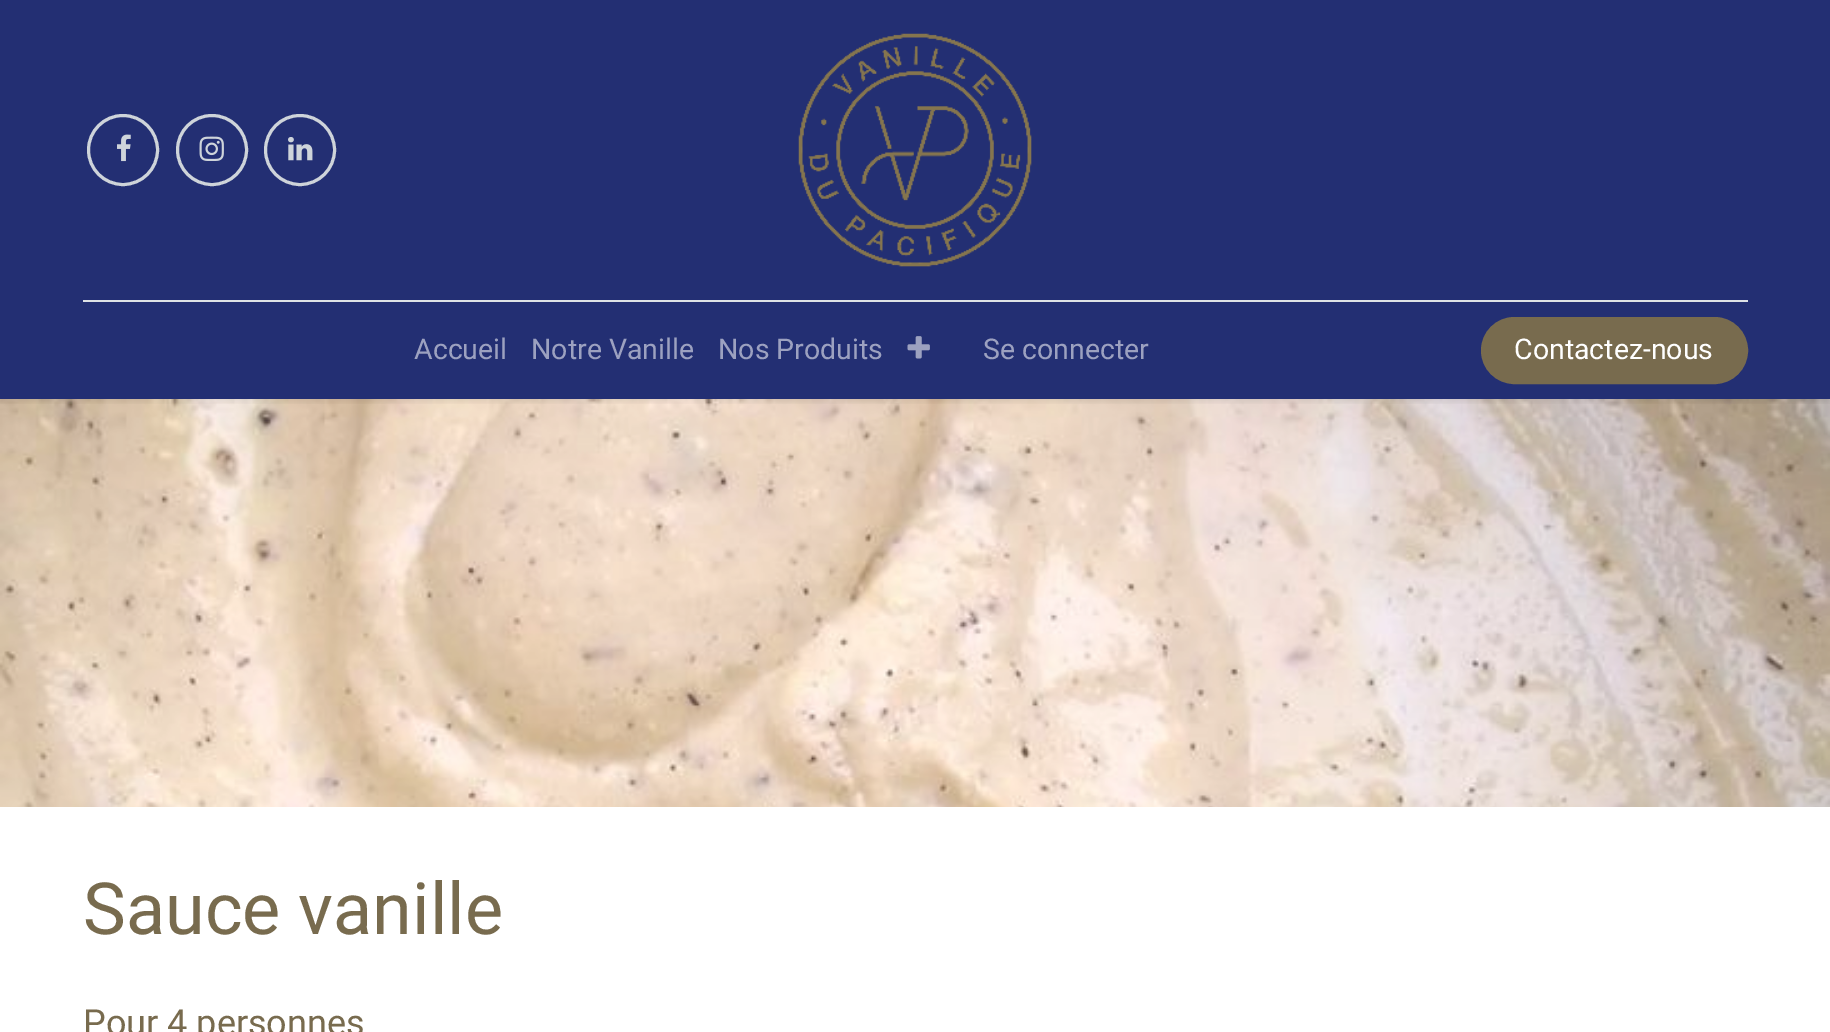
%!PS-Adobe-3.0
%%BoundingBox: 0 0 1830 1032
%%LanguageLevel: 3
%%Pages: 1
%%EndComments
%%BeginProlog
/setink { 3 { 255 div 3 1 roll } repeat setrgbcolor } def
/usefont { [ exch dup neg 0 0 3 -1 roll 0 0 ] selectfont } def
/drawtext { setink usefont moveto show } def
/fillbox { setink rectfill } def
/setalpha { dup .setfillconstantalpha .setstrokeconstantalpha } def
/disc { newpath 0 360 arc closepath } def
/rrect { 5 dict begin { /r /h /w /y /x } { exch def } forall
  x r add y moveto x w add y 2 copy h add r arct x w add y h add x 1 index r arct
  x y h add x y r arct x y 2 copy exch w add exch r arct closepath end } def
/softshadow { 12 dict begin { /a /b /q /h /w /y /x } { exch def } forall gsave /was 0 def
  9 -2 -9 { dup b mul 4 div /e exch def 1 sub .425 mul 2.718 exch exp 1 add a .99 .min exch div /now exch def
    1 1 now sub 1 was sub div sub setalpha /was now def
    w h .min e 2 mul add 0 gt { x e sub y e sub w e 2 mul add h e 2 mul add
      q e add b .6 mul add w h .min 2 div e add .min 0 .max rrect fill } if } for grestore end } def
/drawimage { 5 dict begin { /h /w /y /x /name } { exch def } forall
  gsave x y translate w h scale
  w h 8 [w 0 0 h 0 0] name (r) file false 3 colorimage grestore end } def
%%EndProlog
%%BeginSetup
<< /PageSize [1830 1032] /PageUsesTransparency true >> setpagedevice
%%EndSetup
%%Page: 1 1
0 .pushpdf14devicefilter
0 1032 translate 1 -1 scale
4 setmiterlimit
0 0 1830 1032 35 47 115 fillbox
(assets/img6.rgb) 0 399 1830 408 drawimage
gsave
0 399 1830 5 rectclip
0 0 0 setink
0 3 1830 399 0 3 0.07 softshadow
grestore
206 212 218 setink
3 setlinewidth
123 150 34.5 disc stroke
(assets/img1.rgb) 117 134 14 28 drawimage
212 150 34.5 disc stroke
(assets/img2.rgb) 199 136 25 25 drawimage
300 150 34.5 disc stroke
(assets/img3.rgb) 288 137 25 24 drawimage
(assets/img4.rgb) 798 33 234 234 drawimage
83 300 1665 2 222 226 230 fillbox
(Accueil) 414 359 /Roboto-Regular 28.5 156 161 192 drawtext
(Notre Vanille) 531 359 /Roboto-Regular 28.5 156 161 192 drawtext
(Nos Produits) 718 359 /Roboto-Regular 28.5 156 161 192 drawtext
(assets/img5.rgb) 907 336 23 23 drawimage
(Se connecter) 983 359 /Roboto-Regular 28.5 156 161 192 drawtext
120 107 78 setink
1482 318 265 65 32.5 rrect gsave fill grestore
2 setlinewidth
stroke
(Contactez-nous) 1514 359 /Roboto-Regular 28.5 255 255 255 drawtext
0 807 1830 225 255 255 255 fillbox
(Sauce vanille) 83 934 /Roboto-Regular 72 120 107 78 drawtext
(Pour 4 personnes) 83 1035 /Roboto-Regular 36 120 107 78 drawtext
.poppdf14devicefilter showpage
%%EOF
